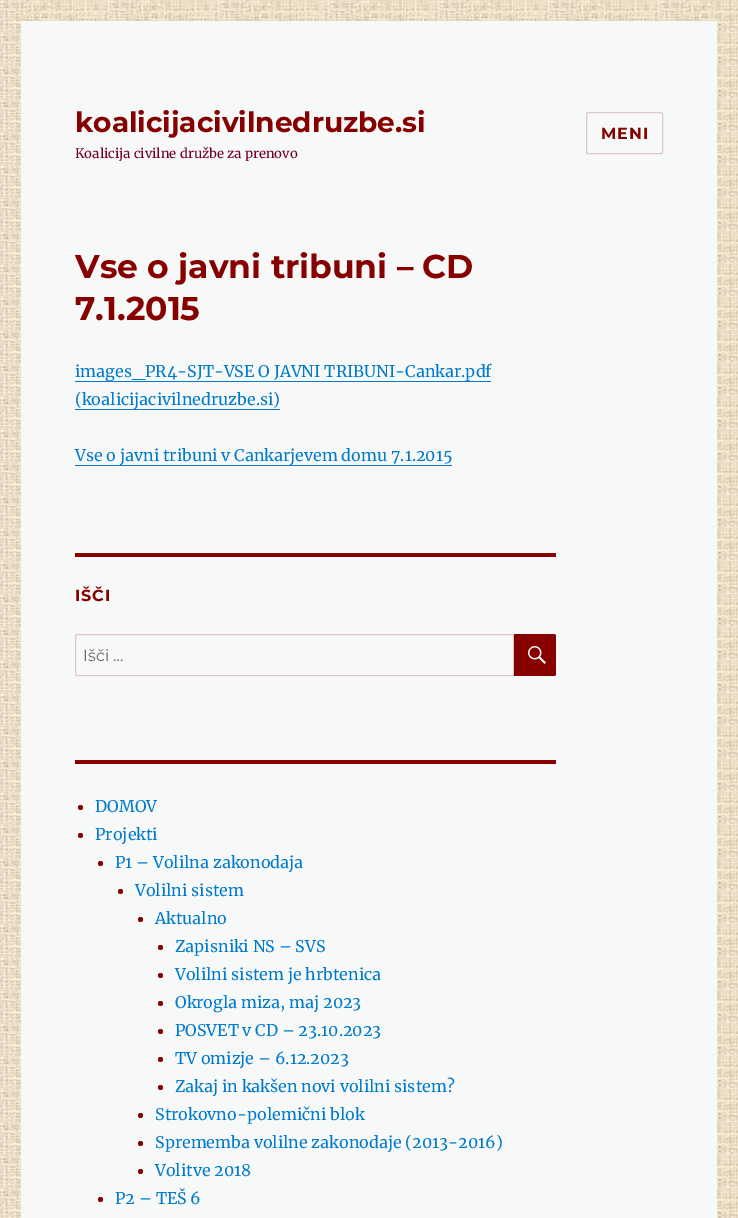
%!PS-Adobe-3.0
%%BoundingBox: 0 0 738 1218
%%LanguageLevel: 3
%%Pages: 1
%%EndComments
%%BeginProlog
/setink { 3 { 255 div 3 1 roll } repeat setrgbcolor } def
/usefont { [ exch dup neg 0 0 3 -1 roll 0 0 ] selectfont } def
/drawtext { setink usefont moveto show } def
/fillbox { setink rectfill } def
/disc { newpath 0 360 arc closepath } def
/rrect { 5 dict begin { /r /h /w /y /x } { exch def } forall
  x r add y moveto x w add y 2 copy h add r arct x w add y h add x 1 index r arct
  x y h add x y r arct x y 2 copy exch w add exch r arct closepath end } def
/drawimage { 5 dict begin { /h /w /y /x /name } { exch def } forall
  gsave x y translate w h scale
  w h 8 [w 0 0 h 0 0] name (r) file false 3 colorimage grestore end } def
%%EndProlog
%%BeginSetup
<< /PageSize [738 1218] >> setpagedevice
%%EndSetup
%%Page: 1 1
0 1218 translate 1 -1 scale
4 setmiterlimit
0 0 738 1218 255 255 255 fillbox
(assets/img1.rgb) 0 0 738 1218 drawimage
21 21 696 1197 247 249 249 fillbox
(koalicijacivilnedruzbe.si) 75 132 /Montserrat-Bold 28 135 0 0 drawtext
gsave
75 105 350 56 rectclip
(Koalicija civilne družbe za prenovo) 75 158 /Merriweather-Regular 13 114 0 34 drawtext
grestore
225 199 199 setink
586.5 112.5 76 41 1.5 rrect stroke
/Montserrat-Bold 16 usefont
135 0 0 setink
601 139 moveto 1 0 (MENI) ashow
(Vse o javni tribuni – CD) 75 278 /Montserrat-Bold 33 135 0 0 drawtext
(7.1.2015) 75 320 /Montserrat-Bold 33 135 0 0 drawtext
75 381 416 1 0 122 204 fillbox
(images_PR4-SJT-VSE O JAVNI TRIBUNI-Cankar.pdf) 75 377 /Merriweather-Regular 16 0 122 204 drawtext
(\(koalicijacivilnedruzbe.si\)) 75 405 /Merriweather-Regular 16 0 122 204 drawtext
75 409 205 1 0 122 204 fillbox
(Vse o javni tribuni v Cankarjevem domu 7.1.2015) 75 461 /Merriweather-Regular 16 0 122 204 drawtext
75 465 377 1 0 122 204 fillbox
75 553 481 4 135 0 0 fillbox
/Montserrat-Bold 16 usefont
75 601 moveto 1 0 (IŠČI) ashow
225 198 198 setink
77 634.5 moveto 513.5 634.5 lineto 513.5 675.5 lineto 77 675.5 lineto 76 675.5 75.5 675 75.5 674 curveto 75.5 636 lineto 75.5 635 76 634.5 77 634.5 curveto closepath stroke
(Išči …) 83 661 /Montserrat-Regular 16 104 104 104 drawtext
135 0 0 setink
514 634 moveto 554 634 lineto 555 634 556 635 556 636 curveto 556 674 lineto 556 675 555 676 554 676 curveto 514 676 lineto closepath fill
(assets/img2.rgb) 528 646 18 18 drawimage
75 760 481 4 135 0 0 fillbox
80.5 807.5 2.5 disc fill
(DOMOV) 95 812 /Merriweather-Regular 16 0 122 204 drawtext
135 0 0 setink
80.5 835.5 2.5 disc fill
(Projekti) 95 840 /Merriweather-Regular 16 0 122 204 drawtext
135 0 0 setink
100.5 863.5 2.5 disc fill
(P1 – Volilna zakonodaja) 115 868 /Merriweather-Regular 16 0 122 204 drawtext
135 0 0 setink
120.5 891.5 2.5 disc fill
(Volilni sistem) 135 896 /Merriweather-Regular 16 0 122 204 drawtext
135 0 0 setink
140.5 919.5 2.5 disc fill
(Aktualno) 155 924 /Merriweather-Regular 16 0 122 204 drawtext
135 0 0 setink
160.5 947.5 2.5 disc fill
(Zapisniki NS – SVS) 175 952 /Merriweather-Regular 16 0 122 204 drawtext
135 0 0 setink
160.5 975.5 2.5 disc fill
(Volilni sistem je hrbtenica) 175 980 /Merriweather-Regular 16 0 122 204 drawtext
135 0 0 setink
160.5 1003.5 2.5 disc fill
(Okrogla miza, maj 2023) 175 1008 /Merriweather-Regular 16 0 122 204 drawtext
135 0 0 setink
160.5 1031.5 2.5 disc fill
(POSVET v CD – 23.10.2023) 175 1036 /Merriweather-Regular 16 0 122 204 drawtext
135 0 0 setink
160.5 1059.5 2.5 disc fill
(TV omizje – 6.12.2023) 175 1064 /Merriweather-Regular 16 0 122 204 drawtext
135 0 0 setink
160.5 1087.5 2.5 disc fill
(Zakaj in kakšen novi volilni sistem?) 175 1092 /Merriweather-Regular 16 0 122 204 drawtext
135 0 0 setink
140.5 1115.5 2.5 disc fill
(Strokovno-polemični blok) 155 1120 /Merriweather-Regular 16 0 122 204 drawtext
135 0 0 setink
140.5 1143.5 2.5 disc fill
(Sprememba volilne zakonodaje \(2013-2016\)) 155 1148 /Merriweather-Regular 16 0 122 204 drawtext
135 0 0 setink
140.5 1171.5 2.5 disc fill
(Volitve 2018) 155 1176 /Merriweather-Regular 16 0 122 204 drawtext
135 0 0 setink
100.5 1199.5 2.5 disc fill
(P2 – TEŠ 6) 115 1204 /Merriweather-Regular 16 0 122 204 drawtext
showpage
%%EOF
